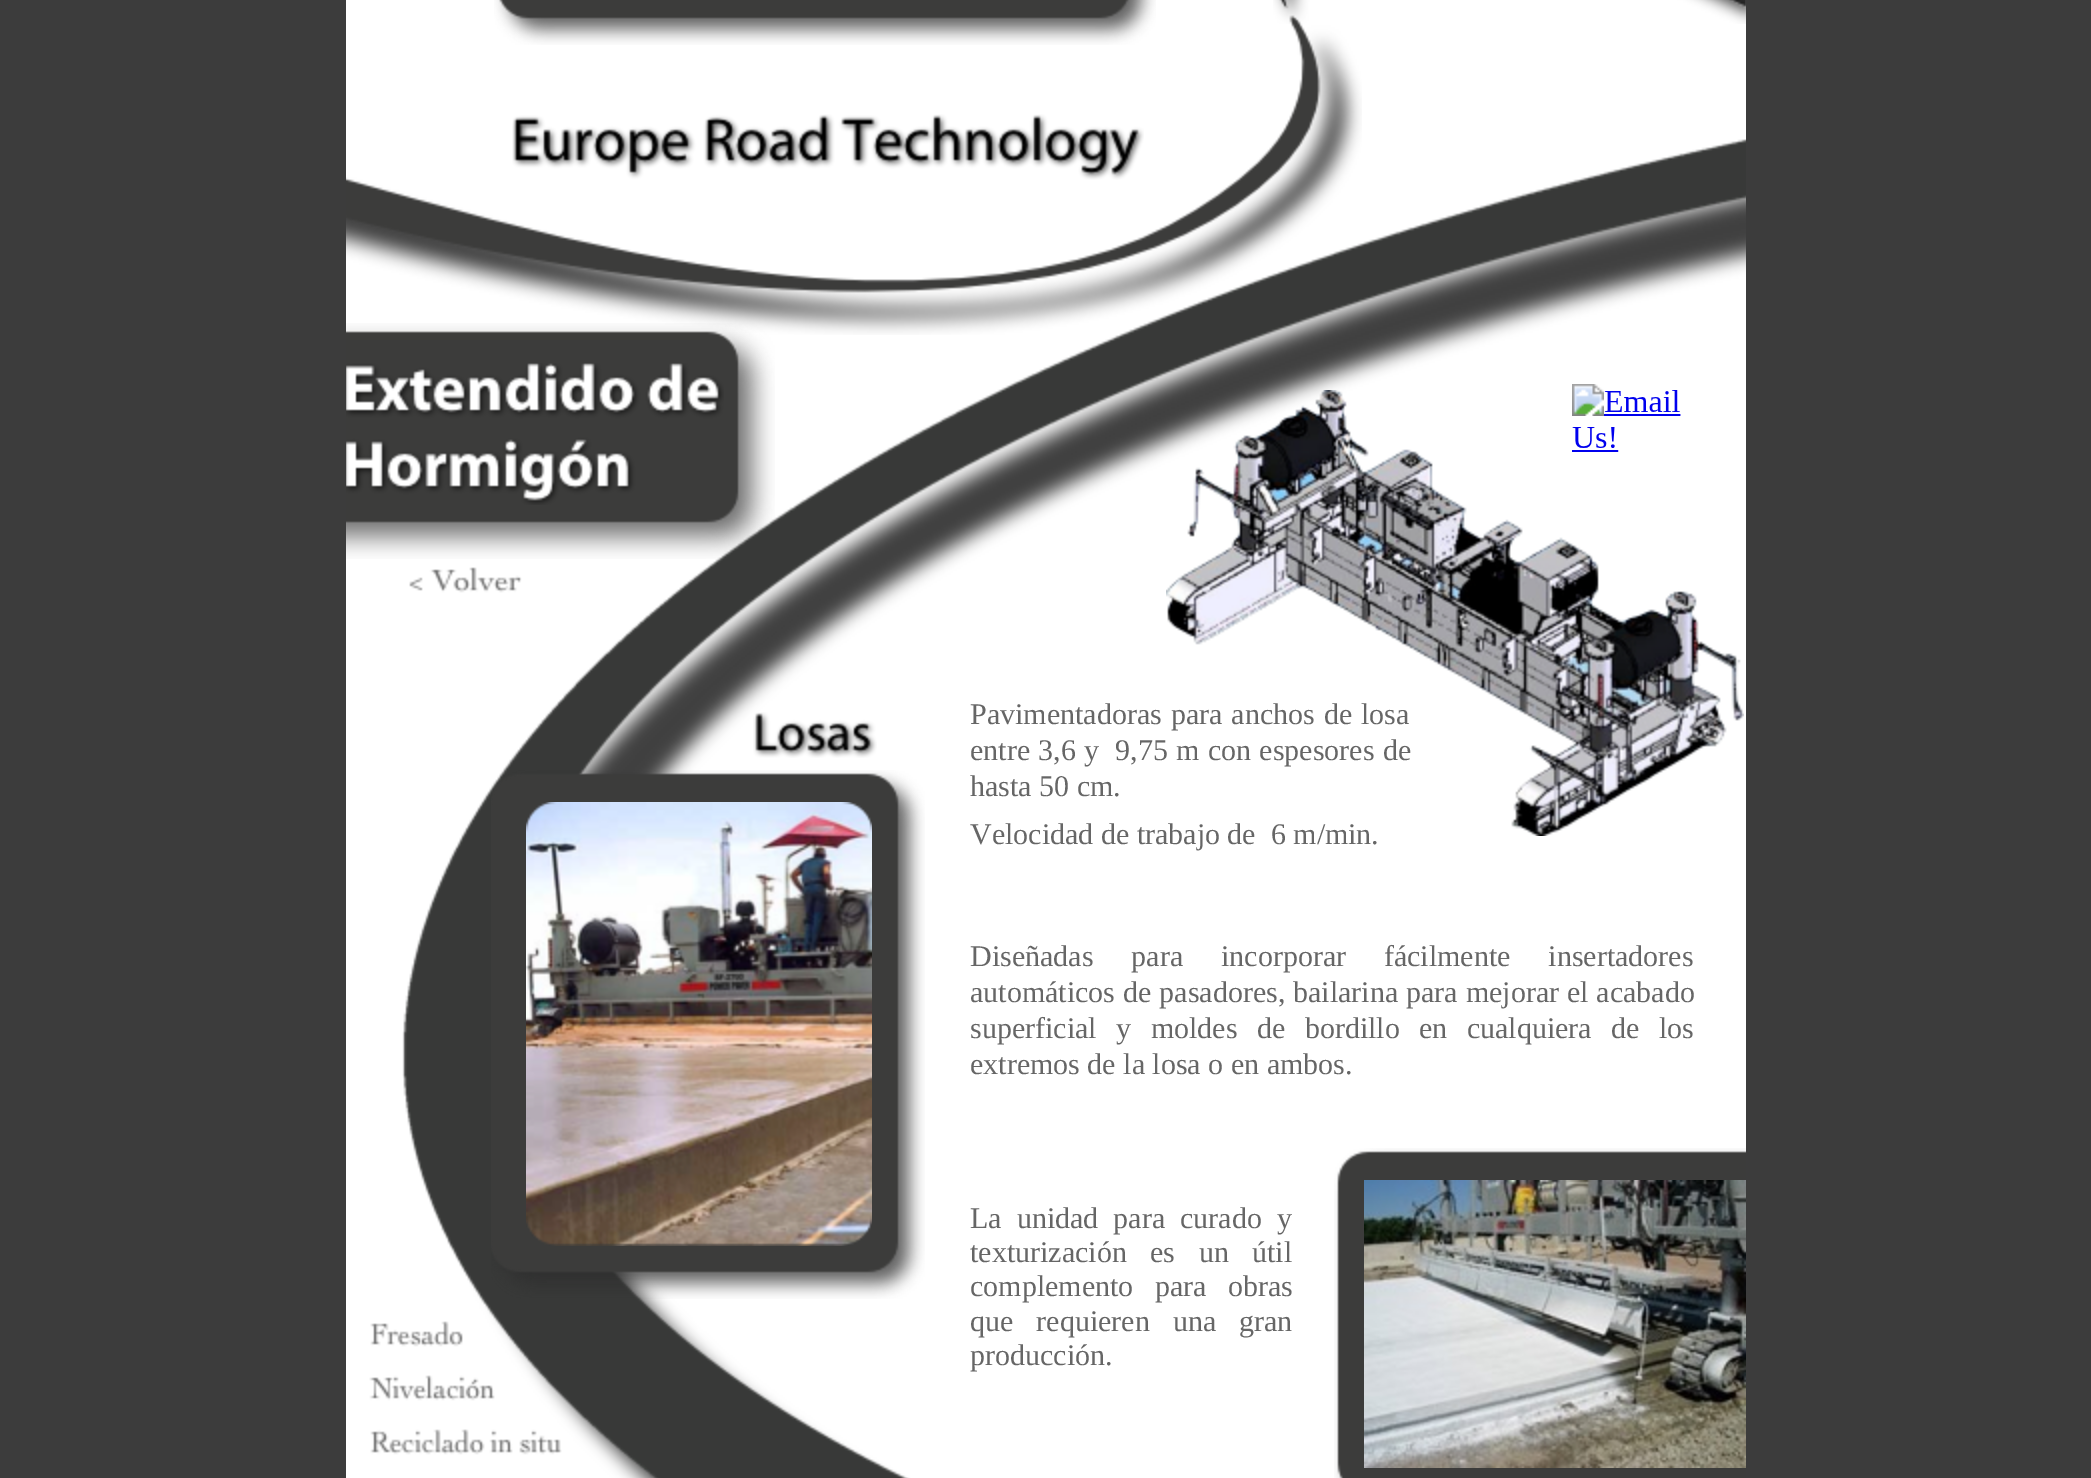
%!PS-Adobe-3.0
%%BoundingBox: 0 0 2091 1478
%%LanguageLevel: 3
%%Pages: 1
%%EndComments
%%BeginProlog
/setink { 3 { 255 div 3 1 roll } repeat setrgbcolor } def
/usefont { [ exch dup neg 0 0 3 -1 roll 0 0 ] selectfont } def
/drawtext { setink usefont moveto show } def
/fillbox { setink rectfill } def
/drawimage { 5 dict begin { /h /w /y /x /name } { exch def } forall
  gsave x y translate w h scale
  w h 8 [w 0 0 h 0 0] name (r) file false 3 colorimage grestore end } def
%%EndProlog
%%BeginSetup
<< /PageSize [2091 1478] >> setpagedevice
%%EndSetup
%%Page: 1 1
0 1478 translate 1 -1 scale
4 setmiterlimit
0 0 2091 1478 60 60 60 fillbox
346 0 1400 1478 255 255 255 fillbox
(assets/img1.rgb) 494 0 662 45 drawimage
(assets/img6.rgb) 346 323 429 236 drawimage
(assets/img5.rgb) 402 139 1344 1339 drawimage
(assets/img3.rgb) 346 15 1016 320 drawimage
(assets/img2.rgb) 1273 0 473 24 drawimage
(assets/img4.rgb) 512 114 632 66 drawimage
(assets/img7.rgb) 346 363 378 142 drawimage
(assets/img10.rgb) 1166 390 578 446 drawimage
(assets/img8.rgb) 1572 384 109 68 drawimage
(assets/img9.rgb) 409 567 113 26 drawimage
(assets/img11.rgb) 753 712 124 46 drawimage
/LiberationSerif-Regular 30 usefont
102 102 102 setink
970 724 moveto 1.5 0 32 (Pavimentadoras para anchos de losa) widthshow
970 760 moveto 0.75 0 32 (entre 3,6 y  9,75 m con espesores de) widthshow
(hasta 50 cm.) 970 796 /LiberationSerif-Regular 30 102 102 102 drawtext
(Velocidad de trabajo de  6 m/min.) 970 844 /LiberationSerif-Regular 30 102 102 102 drawtext
(assets/img12.rgb) 491 770 434 529 drawimage
(assets/img13.rgb) 526 802 346 444 drawimage
970 966 moveto 30.5 0 32 (Diseñadas para incorporar fácilmente insertadores) widthshow
970 1002 moveto 0.5 0 32 (automáticos de pasadores, bailarina para mejorar el acabado) widthshow
970 1038 moveto 12 0 32 (superficial y moldes de bordillo en cualquiera de los) widthshow
(extremos de la losa o en ambos.) 970 1074 /LiberationSerif-Regular 30 102 102 102 drawtext
(assets/img14.rgb) 1334 1148 412 330 drawimage
(assets/img15.rgb) 370 1321 93 26 drawimage
970 1228 moveto 7.5 0 32 (La unidad para curado y) widthshow
970 1262 moveto 16 0 32 (texturización es un útil) widthshow
970 1296 moveto 14 0 32 (complemento para obras) widthshow
970 1331 moveto 15.5 0 32 (que requieren una gran) widthshow
(producción.) 970 1365 /LiberationSerif-Regular 30 102 102 102 drawtext
(assets/img16.rgb) 1364 1180 382 288 drawimage
(assets/img17.rgb) 369 1375 126 26 drawimage
(assets/img18.rgb) 370 1429 192 26 drawimage
showpage
%%EOF
